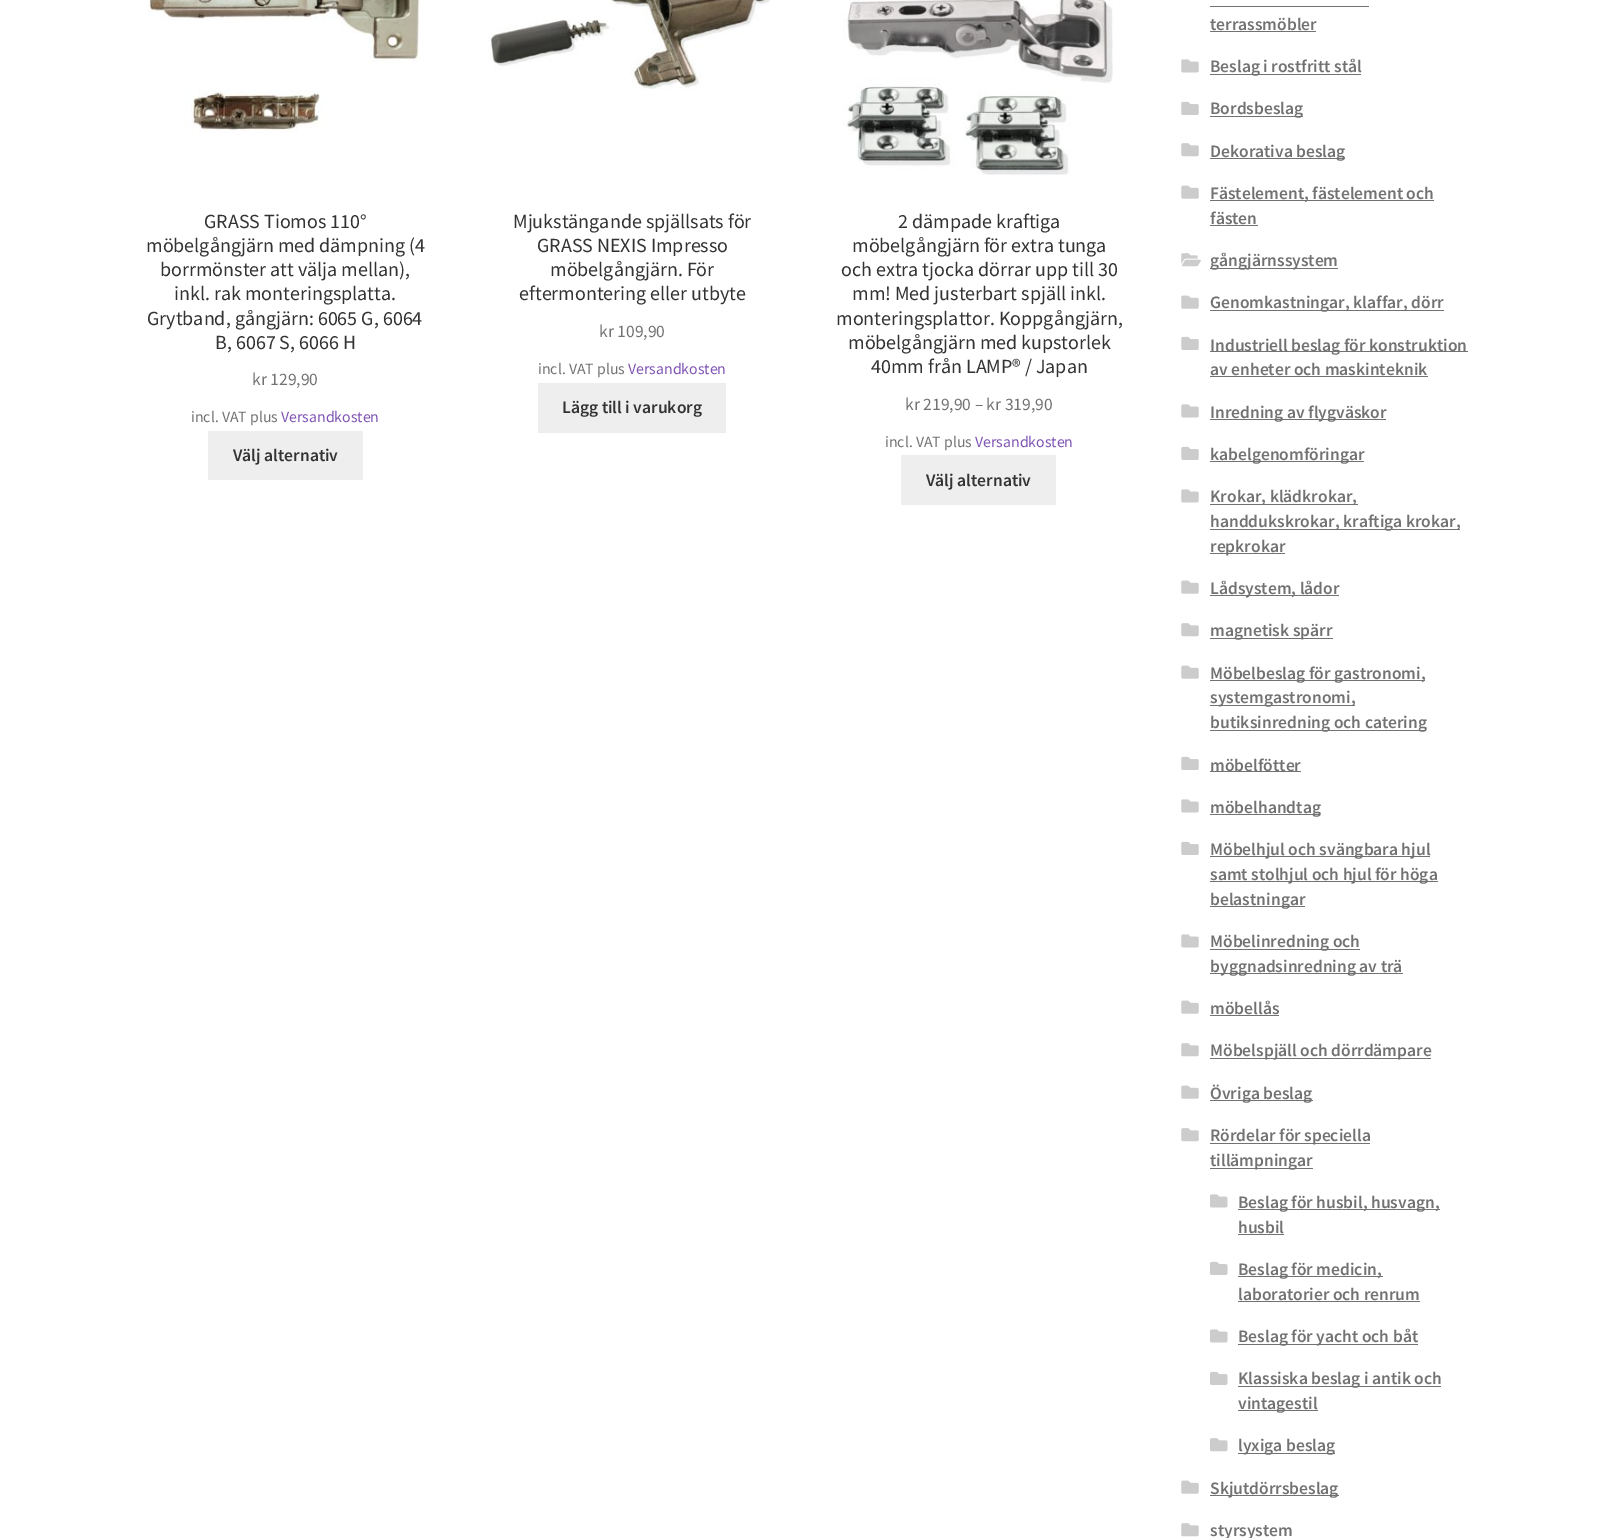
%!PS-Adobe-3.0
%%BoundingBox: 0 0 1611 1538
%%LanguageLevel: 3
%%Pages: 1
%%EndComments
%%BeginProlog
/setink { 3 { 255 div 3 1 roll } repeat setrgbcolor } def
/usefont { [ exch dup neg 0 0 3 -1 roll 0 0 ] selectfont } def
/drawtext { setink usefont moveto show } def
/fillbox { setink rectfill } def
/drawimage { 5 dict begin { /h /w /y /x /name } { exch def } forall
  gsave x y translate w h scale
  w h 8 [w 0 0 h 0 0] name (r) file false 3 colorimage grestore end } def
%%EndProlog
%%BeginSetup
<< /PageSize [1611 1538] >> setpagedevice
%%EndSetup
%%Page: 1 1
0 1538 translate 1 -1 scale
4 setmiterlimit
0 0 1611 1538 255 255 255 fillbox
(assets/img1.rgb) 148 0 272 133 drawimage
(GRASS Tiomos 110°) 204 228 /SourceSansPro-Regular 20 51 51 51 drawtext
(möbelgångjärn med dämpning \(4) 146 252 /SourceSansPro-Regular 20 51 51 51 drawtext
(borrmönster att välja mellan\),) 160 276 /SourceSansPro-Regular 20 51 51 51 drawtext
(inkl. rak monteringsplatta.) 174 300 /SourceSansPro-Regular 20 51 51 51 drawtext
(Grytband, gångjärn: 6065 G, 6064) 147 325 /SourceSansPro-Regular 20 51 51 51 drawtext
(B, 6067 S, 6066 H) 215 349 /SourceSansPro-Regular 20 51 51 51 drawtext
(kr 129,90) 252 385 /SourceSansPro-Regular 17.5 114 114 114 drawtext
(incl. VAT) 191 422 /SourceSansPro-Regular 15.75 114 114 114 drawtext
(plus) 250 422 /SourceSansPro-Regular 15.75 114 114 114 drawtext
(Versandkosten) 281 422 /SourceSansPro-Regular 15.75 127 84 179 drawtext
208 431 155 49 238 238 238 fillbox
(Välj alternativ) 233 461 /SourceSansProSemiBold-SemiBold 17.5 51 51 51 drawtext
(assets/img2.rgb) 488 0 282 90 drawimage
(Mjukstängande spjällsats för) 513 228 /SourceSansPro-Regular 20 51 51 51 drawtext
(GRASS NEXIS Impresso) 537 252 /SourceSansPro-Regular 20 51 51 51 drawtext
(möbelgångjärn. För) 550 276 /SourceSansPro-Regular 20 51 51 51 drawtext
(eftermontering eller utbyte) 519 300 /SourceSansPro-Regular 20 51 51 51 drawtext
(kr 109,90) 599 337 /SourceSansPro-Regular 17.5 114 114 114 drawtext
(incl. VAT) 538 374 /SourceSansPro-Regular 15.75 114 114 114 drawtext
(plus) 597 374 /SourceSansPro-Regular 15.75 114 114 114 drawtext
(Versandkosten) 628 374 /SourceSansPro-Regular 15.75 127 84 179 drawtext
538 383 188 50 238 238 238 fillbox
(Lägg till i varukorg) 562 413 /SourceSansProSemiBold-SemiBold 17.5 51 51 51 drawtext
(assets/img3.rgb) 843 0 270 175 drawimage
(2 dämpade kraftiga) 898 228 /SourceSansPro-Regular 20 51 51 51 drawtext
(möbelgångjärn för extra tunga) 852 252 /SourceSansPro-Regular 20 51 51 51 drawtext
(och extra tjocka dörrar upp till 30) 841 276 /SourceSansPro-Regular 20 51 51 51 drawtext
(mm! Med justerbart spjäll inkl.) 852 300 /SourceSansPro-Regular 20 51 51 51 drawtext
(monteringsplattor. Koppgångjärn,) 836 325 /SourceSansPro-Regular 20 51 51 51 drawtext
(möbelgångjärn med kupstorlek) 848 349 /SourceSansPro-Regular 20 51 51 51 drawtext
(40mm från LAMP® / Japan) 871 373 /SourceSansPro-Regular 20 51 51 51 drawtext
(kr 219,90 – kr 319,90) 905 410 /SourceSansPro-Regular 17.5 114 114 114 drawtext
(incl. VAT) 885 447 /SourceSansPro-Regular 15.75 114 114 114 drawtext
(plus) 944 447 /SourceSansPro-Regular 15.75 114 114 114 drawtext
(Versandkosten) 975 447 /SourceSansPro-Regular 15.75 127 84 179 drawtext
901 455 155 50 238 238 238 fillbox
(Välj alternativ) 926 486 /SourceSansProSemiBold-SemiBold 17.5 51 51 51 drawtext
(terrassmöbler) 1210 30 /SourceSansProSemiBold-SemiBold 17.5 114 114 114 drawtext
1210 6 159 1 114 114 114 fillbox
1210 31 106 1 114 114 114 fillbox
(assets/img4.rgb) 1181 59 18 14 drawimage
1210 74 151 1 114 114 114 fillbox
(Beslag i rostfritt stål) 1210 72 /SourceSansProSemiBold-SemiBold 17.5 114 114 114 drawtext
(assets/img5.rgb) 1181 101 18 14 drawimage
1210 116 93 1 114 114 114 fillbox
(Bordsbeslag) 1210 114 /SourceSansProSemiBold-SemiBold 17.5 114 114 114 drawtext
(assets/img6.rgb) 1181 143 18 14 drawimage
1210 158 135 1 114 114 114 fillbox
(Dekorativa beslag) 1210 157 /SourceSansProSemiBold-SemiBold 17.5 114 114 114 drawtext
(assets/img7.rgb) 1181 185 18 14 drawimage
1210 200 224 1 114 114 114 fillbox
(Fästelement, fästelement och) 1210 199 /SourceSansProSemiBold-SemiBold 17.5 114 114 114 drawtext
(fästen) 1210 224 /SourceSansProSemiBold-SemiBold 17.5 114 114 114 drawtext
1210 225 48 1 114 114 114 fillbox
(assets/img8.rgb) 1181 253 20 14 drawimage
1210 268 128 1 114 114 114 fillbox
(gångjärnssystem) 1210 266 /SourceSansProSemiBold-SemiBold 17.5 114 114 114 drawtext
(assets/img7.rgb) 1181 295 18 14 drawimage
1210 310 234 1 114 114 114 fillbox
(Genomkastningar, klaffar, dörr) 1210 308 /SourceSansProSemiBold-SemiBold 17.5 114 114 114 drawtext
(assets/img5.rgb) 1181 336 18 14 drawimage
1210 351 258 1 114 114 114 fillbox
(Industriell beslag för konstruktion) 1210 351 /SourceSansProSemiBold-SemiBold 17.5 114 114 114 drawtext
(av enheter och maskinteknik) 1210 375 /SourceSansProSemiBold-SemiBold 17.5 114 114 114 drawtext
1210 376 218 1 114 114 114 fillbox
(assets/img4.rgb) 1181 404 18 14 drawimage
1210 419 176 1 114 114 114 fillbox
(Inredning av flygväskor) 1210 418 /SourceSansProSemiBold-SemiBold 17.5 114 114 114 drawtext
(assets/img5.rgb) 1181 446 18 14 drawimage
1210 461 154 1 114 114 114 fillbox
(kabelgenomföringar) 1210 460 /SourceSansProSemiBold-SemiBold 17.5 114 114 114 drawtext
(assets/img4.rgb) 1181 489 18 14 drawimage
1210 504 148 1 114 114 114 fillbox
(Krokar, klädkrokar,) 1210 502 /SourceSansProSemiBold-SemiBold 17.5 114 114 114 drawtext
1210 529 250 1 114 114 114 fillbox
(handdukskrokar, kraftiga krokar,) 1210 527 /SourceSansProSemiBold-SemiBold 17.5 114 114 114 drawtext
1210 553 75 1 114 114 114 fillbox
(repkrokar) 1210 552 /SourceSansProSemiBold-SemiBold 17.5 114 114 114 drawtext
(assets/img7.rgb) 1181 580 18 14 drawimage
1210 595 129 1 114 114 114 fillbox
(Lådsystem, lådor) 1210 594 /SourceSansProSemiBold-SemiBold 17.5 114 114 114 drawtext
(assets/img6.rgb) 1181 623 18 14 drawimage
1210 638 123 1 114 114 114 fillbox
(magnetisk spärr) 1210 636 /SourceSansProSemiBold-SemiBold 17.5 114 114 114 drawtext
(assets/img7.rgb) 1181 665 18 14 drawimage
1210 680 215 1 114 114 114 fillbox
(Möbelbeslag för gastronomi,) 1210 679 /SourceSansProSemiBold-SemiBold 17.5 114 114 114 drawtext
1210 705 145 1 114 114 114 fillbox
(systemgastronomi,) 1210 703 /SourceSansProSemiBold-SemiBold 17.5 114 114 114 drawtext
1210 730 216 1 114 114 114 fillbox
(butiksinredning och catering) 1210 728 /SourceSansProSemiBold-SemiBold 17.5 114 114 114 drawtext
(assets/img5.rgb) 1181 756 18 14 drawimage
1210 771 91 1 114 114 114 fillbox
(möbelfötter) 1210 771 /SourceSansProSemiBold-SemiBold 17.5 114 114 114 drawtext
(assets/img4.rgb) 1181 799 18 14 drawimage
1210 814 110 1 114 114 114 fillbox
(möbelhandtag) 1210 813 /SourceSansProSemiBold-SemiBold 17.5 114 114 114 drawtext
(assets/img5.rgb) 1181 841 18 14 drawimage
1210 856 220 1 114 114 114 fillbox
(Möbelhjul och svängbara hjul) 1210 855 /SourceSansProSemiBold-SemiBold 17.5 114 114 114 drawtext
1210 881 228 1 114 114 114 fillbox
(samt stolhjul och hjul för höga) 1210 880 /SourceSansProSemiBold-SemiBold 17.5 114 114 114 drawtext
1210 906 95 1 114 114 114 fillbox
(belastningar) 1210 905 /SourceSansProSemiBold-SemiBold 17.5 114 114 114 drawtext
(assets/img4.rgb) 1181 934 18 14 drawimage
1210 949 150 1 114 114 114 fillbox
(Möbelinredning och) 1210 947 /SourceSansProSemiBold-SemiBold 17.5 114 114 114 drawtext
1210 973 193 1 114 114 114 fillbox
(byggnadsinredning av trä) 1210 972 /SourceSansProSemiBold-SemiBold 17.5 114 114 114 drawtext
(assets/img7.rgb) 1181 1000 18 14 drawimage
(möbellås) 1210 1014 /SourceSansProSemiBold-SemiBold 17.5 114 114 114 drawtext
1210 1015 69 1 114 114 114 fillbox
(assets/img6.rgb) 1181 1043 18 14 drawimage
1210 1058 221 1 114 114 114 fillbox
(Möbelspjäll och dörrdämpare) 1210 1056 /SourceSansProSemiBold-SemiBold 17.5 114 114 114 drawtext
(assets/img7.rgb) 1181 1085 18 14 drawimage
1210 1100 103 1 114 114 114 fillbox
(Övriga beslag) 1210 1099 /SourceSansProSemiBold-SemiBold 17.5 114 114 114 drawtext
(assets/img6.rgb) 1181 1128 18 14 drawimage
1210 1143 160 1 114 114 114 fillbox
(Rördelar för speciella) 1210 1141 /SourceSansProSemiBold-SemiBold 17.5 114 114 114 drawtext
1210 1168 103 1 114 114 114 fillbox
(tillämpningar) 1210 1166 /SourceSansProSemiBold-SemiBold 17.5 114 114 114 drawtext
(assets/img9.rgb) 1210 1194 18 14 drawimage
1238 1209 202 1 114 114 114 fillbox
(Beslag för husbil, husvagn,) 1238 1208 /SourceSansProSemiBold-SemiBold 17.5 114 114 114 drawtext
(husbil) 1238 1233 /SourceSansProSemiBold-SemiBold 17.5 114 114 114 drawtext
1238 1234 46 1 114 114 114 fillbox
(assets/img10.rgb) 1210 1261 18 14 drawimage
1238 1276 145 1 114 114 114 fillbox
(Beslag för medicin,) 1238 1275 /SourceSansProSemiBold-SemiBold 17.5 114 114 114 drawtext
(laboratorier och renrum) 1238 1300 /SourceSansProSemiBold-SemiBold 17.5 114 114 114 drawtext
1238 1301 182 1 114 114 114 fillbox
(assets/img9.rgb) 1210 1329 18 14 drawimage
1238 1344 180 1 114 114 114 fillbox
(Beslag för yacht och båt) 1238 1342 /SourceSansProSemiBold-SemiBold 17.5 114 114 114 drawtext
(assets/img10.rgb) 1210 1371 18 14 drawimage
1238 1386 203 1 114 114 114 fillbox
(Klassiska beslag i antik och) 1238 1384 /SourceSansProSemiBold-SemiBold 17.5 114 114 114 drawtext
1238 1410 80 1 114 114 114 fillbox
(vintagestil) 1238 1409 /SourceSansProSemiBold-SemiBold 17.5 114 114 114 drawtext
(assets/img11.rgb) 1210 1438 18 14 drawimage
1238 1453 97 1 114 114 114 fillbox
(lyxiga beslag) 1238 1451 /SourceSansProSemiBold-SemiBold 17.5 114 114 114 drawtext
(assets/img7.rgb) 1181 1480 18 14 drawimage
1210 1495 129 1 114 114 114 fillbox
(Skjutdörrsbeslag) 1210 1494 /SourceSansProSemiBold-SemiBold 17.5 114 114 114 drawtext
(assets/img6.rgb) 1181 1523 18 14 drawimage
(styrsystem) 1210 1536 /SourceSansProSemiBold-SemiBold 17.5 114 114 114 drawtext
showpage
%%EOF
